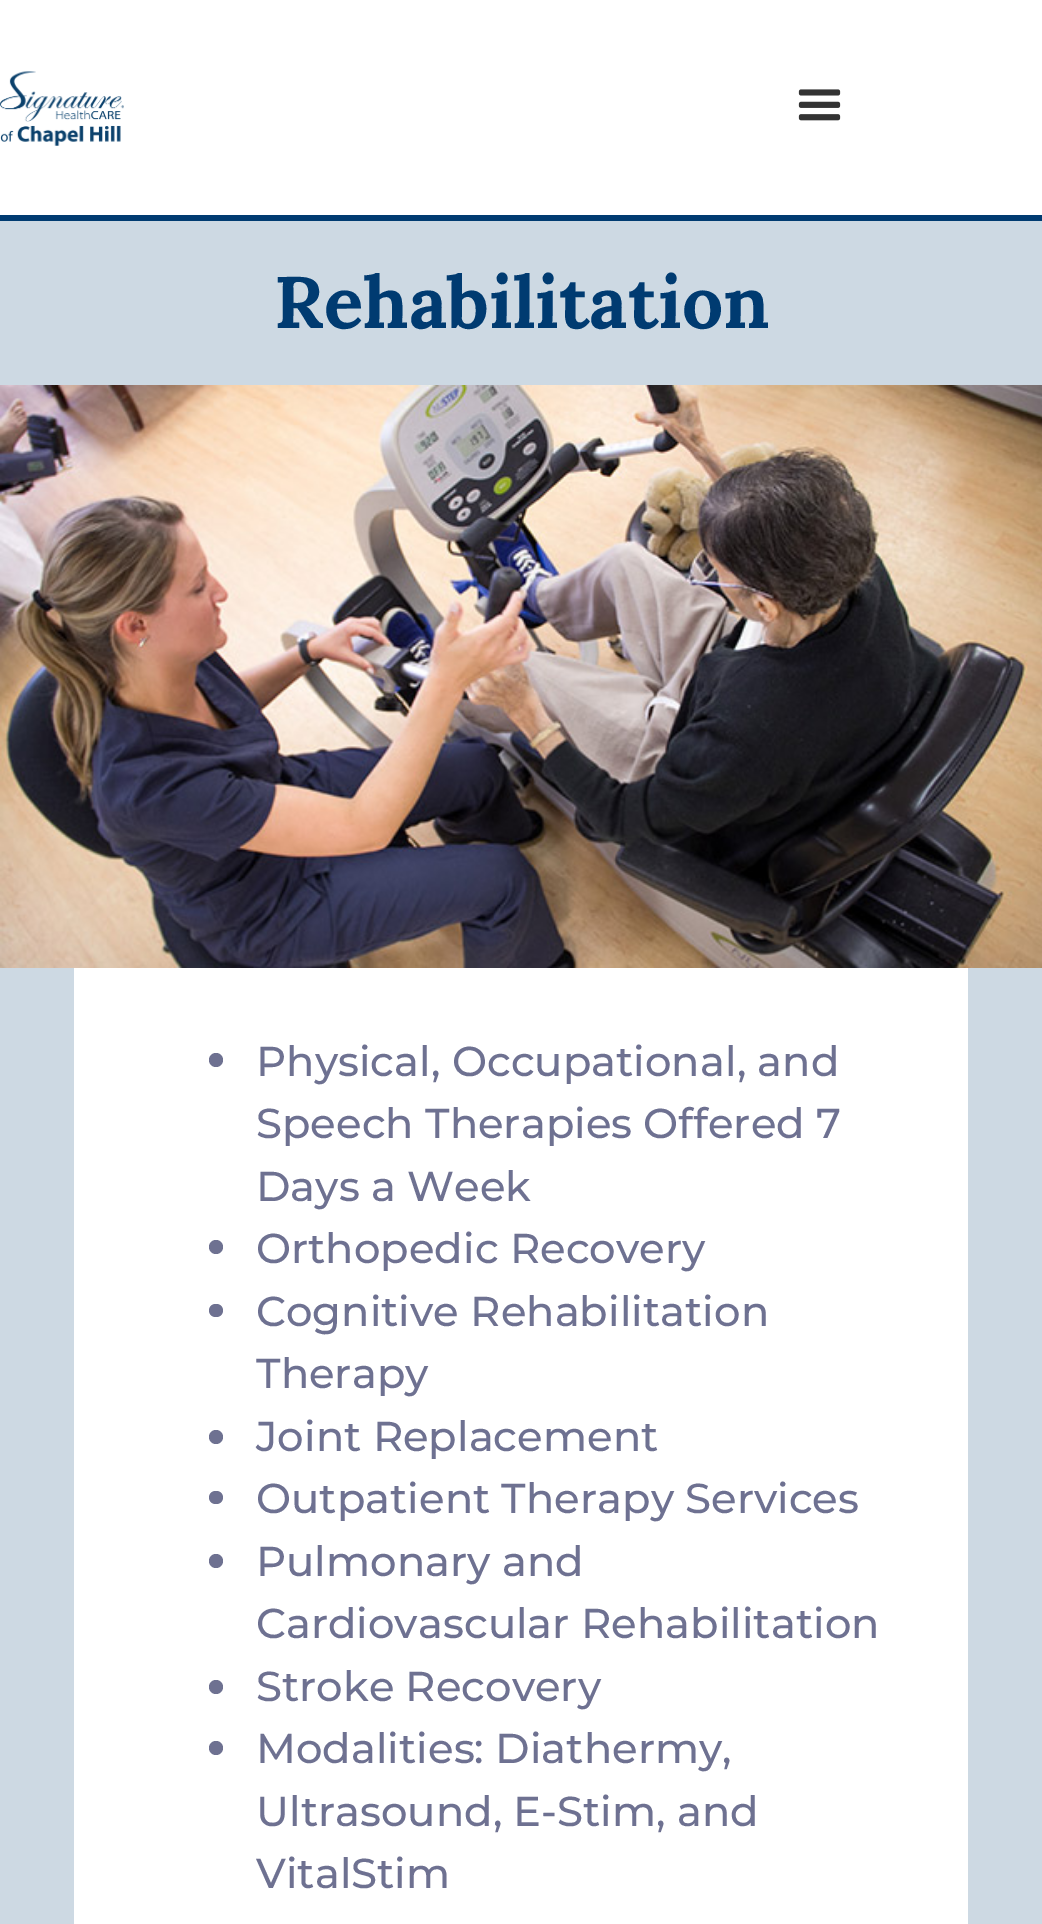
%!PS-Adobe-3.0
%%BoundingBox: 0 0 1042 1924
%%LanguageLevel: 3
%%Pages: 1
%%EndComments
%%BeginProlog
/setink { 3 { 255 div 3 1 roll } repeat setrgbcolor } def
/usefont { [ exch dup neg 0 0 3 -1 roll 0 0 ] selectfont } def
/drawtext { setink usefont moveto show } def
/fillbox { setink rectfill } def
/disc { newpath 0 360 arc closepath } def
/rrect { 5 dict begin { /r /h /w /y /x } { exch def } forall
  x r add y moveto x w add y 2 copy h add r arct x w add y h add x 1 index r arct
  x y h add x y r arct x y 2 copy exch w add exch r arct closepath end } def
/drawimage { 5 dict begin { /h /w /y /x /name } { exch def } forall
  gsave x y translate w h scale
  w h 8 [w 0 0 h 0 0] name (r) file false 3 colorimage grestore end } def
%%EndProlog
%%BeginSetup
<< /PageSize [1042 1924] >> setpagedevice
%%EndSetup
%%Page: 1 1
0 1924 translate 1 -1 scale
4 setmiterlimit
0 0 1042 1924 205 217 227 fillbox
0 0 1042 215 255 255 255 fillbox
(assets/img1.rgb) 0 71 124 75 drawimage
(assets/img2.rgb) 798 89 43 32 drawimage
0 215 1042 6 0 59 113 fillbox
(Rehabilitation) 274 328 /Lora-Bold 73 0 59 113 drawtext
(assets/img3.rgb) 0 385 1042 583 drawimage
74 968 894 956 255 255 255 fillbox
110 113 145 setink
216 1060 7 disc fill
(Physical, Occupational, and) 256 1076 /Montserrat-Medium 41.75 110 113 145 drawtext
(Speech Therapies Offered 7) 256 1138 /Montserrat-Medium 41.75 110 113 145 drawtext
(Days a Week) 256 1201 /Montserrat-Medium 41.75 110 113 145 drawtext
216 1247 7 disc fill
(Orthopedic Recovery) 256 1263 /Montserrat-Medium 41.75 110 113 145 drawtext
209 1304 14 13 6.5 rrect fill
(Cognitive Rehabilitation) 256 1326 /Montserrat-Medium 41.75 110 113 145 drawtext
(Therapy) 256 1388 /Montserrat-Medium 41.75 110 113 145 drawtext
216 1437 7 disc fill
(Joint Replacement) 256 1451 /Montserrat-Medium 41.75 110 113 145 drawtext
209 1491 14 13 6.5 rrect fill
(Outpatient Therapy Services) 256 1513 /Montserrat-Medium 41.75 110 113 145 drawtext
216 1561 7 disc fill
(Pulmonary and) 256 1576 /Montserrat-Medium 41.75 110 113 145 drawtext
(Cardiovascular Rehabilitation) 256 1638 /Montserrat-Medium 41.75 110 113 145 drawtext
216 1687 7 disc fill
(Stroke Recovery) 256 1701 /Montserrat-Medium 41.75 110 113 145 drawtext
216 1748 7 disc fill
(Modalities: Diathermy,) 256 1763 /Montserrat-Medium 41.75 110 113 145 drawtext
(Ultrasound, E-Stim, and) 256 1826 /Montserrat-Medium 41.75 110 113 145 drawtext
(VitalStim) 256 1888 /Montserrat-Medium 41.75 110 113 145 drawtext
showpage
%%EOF
